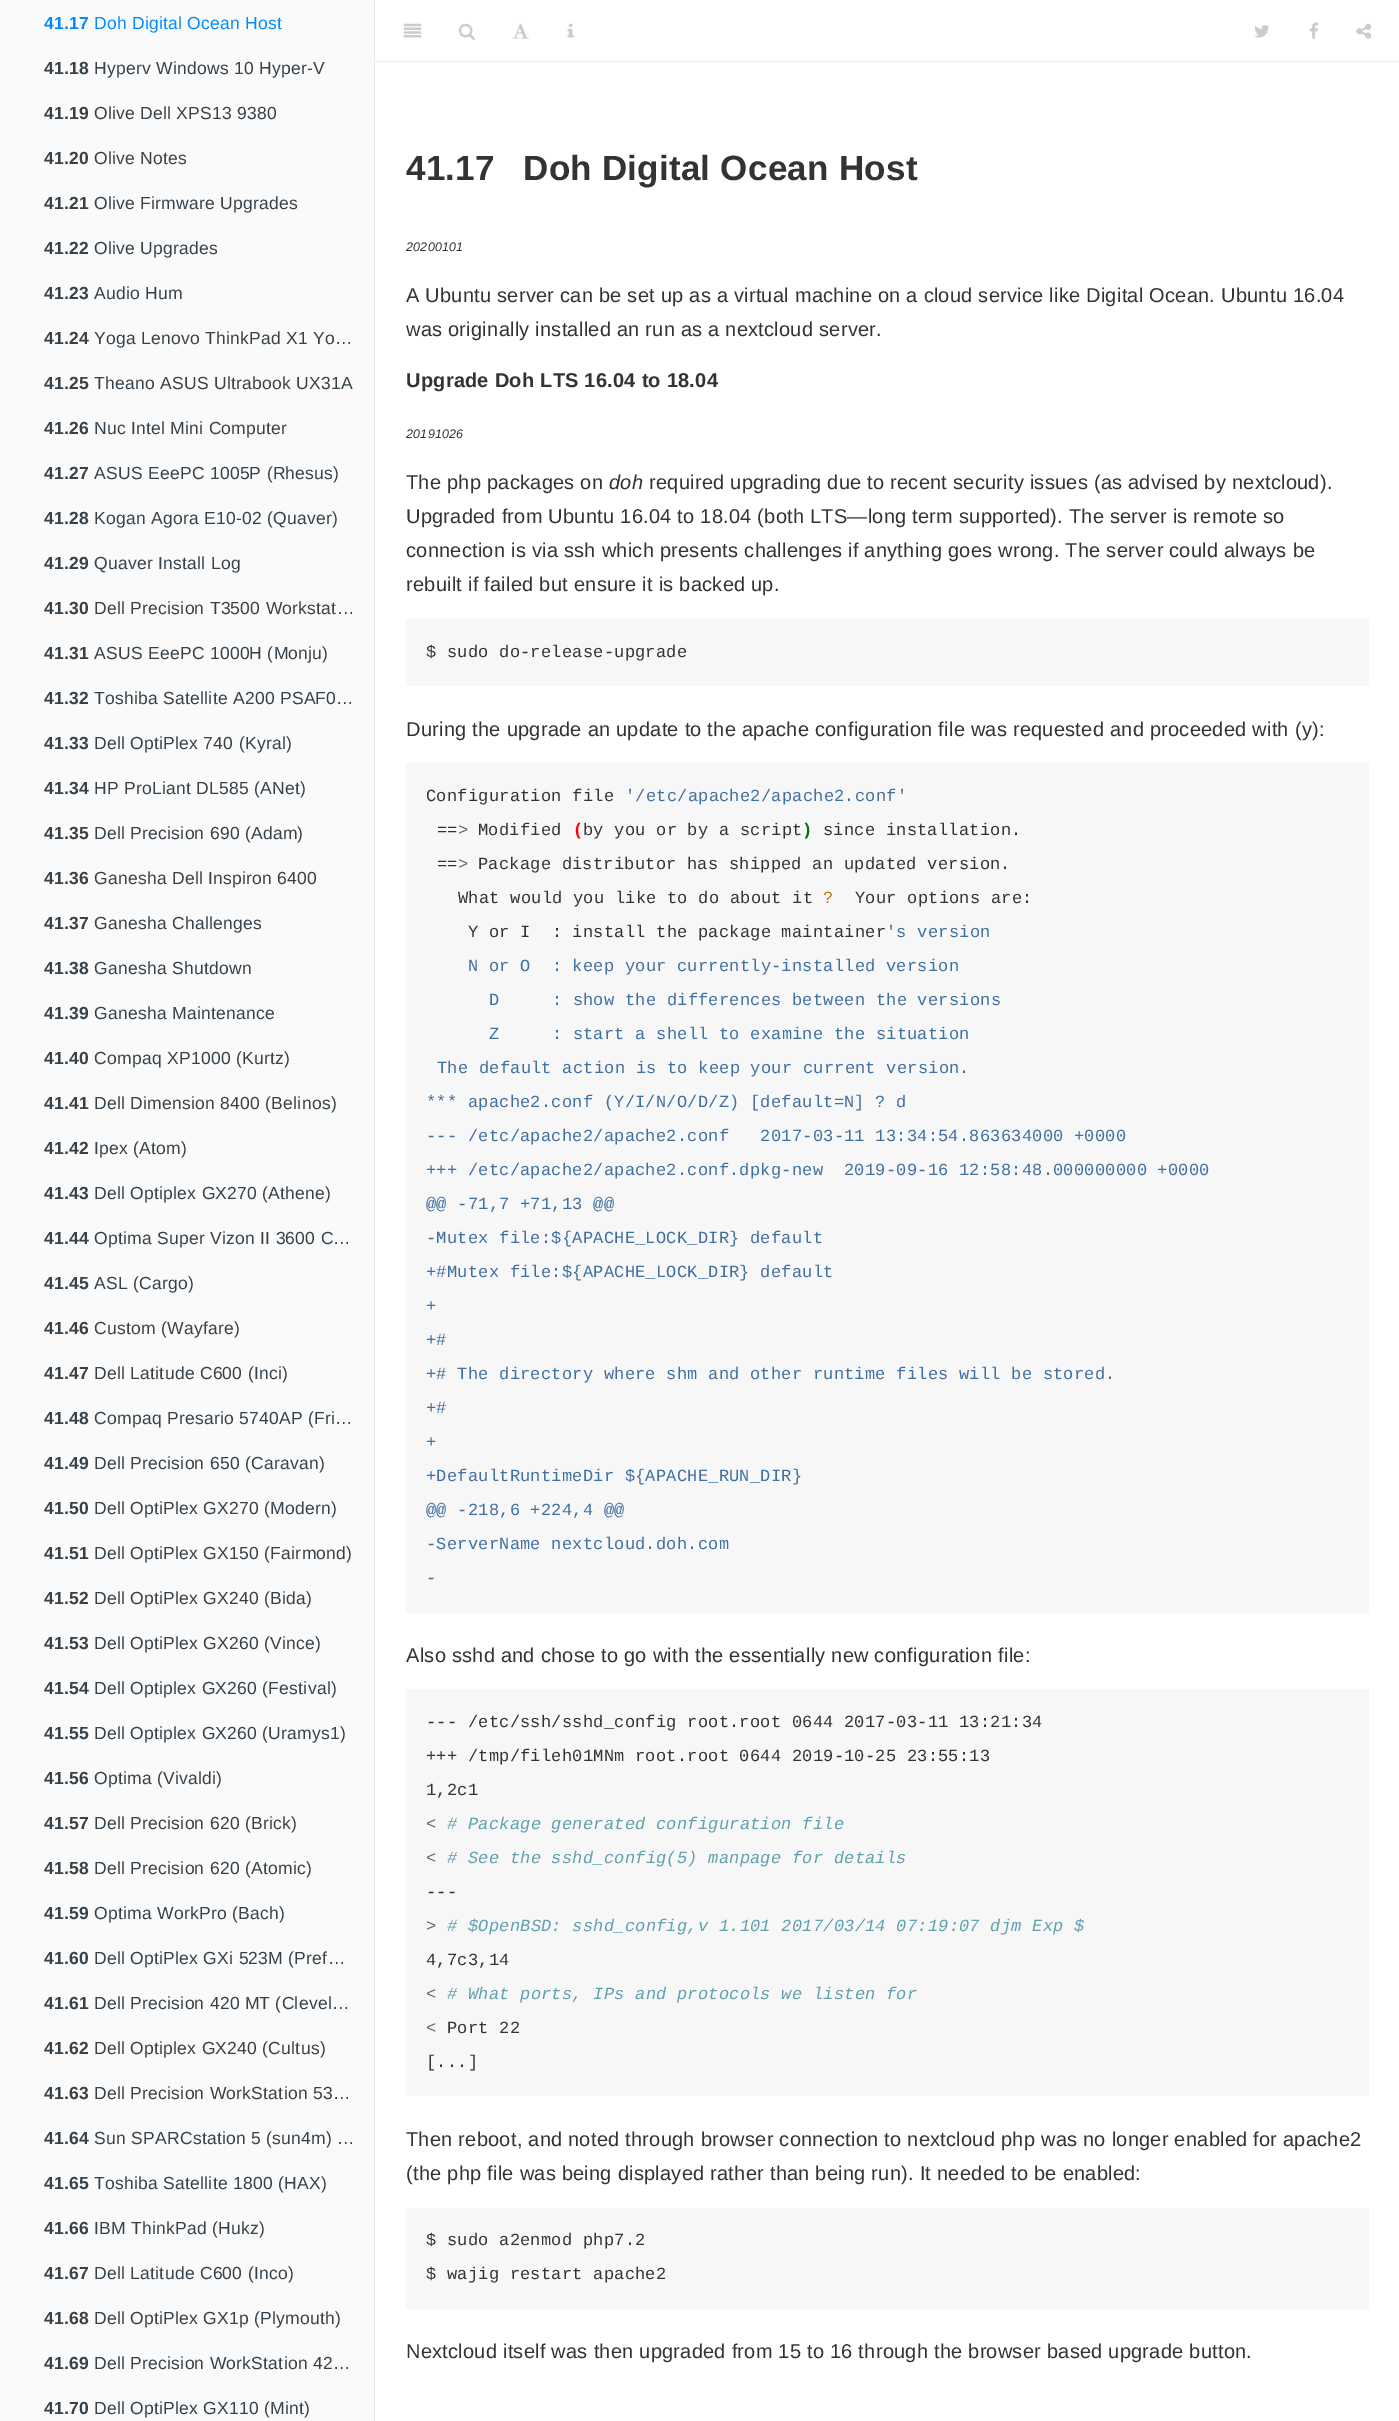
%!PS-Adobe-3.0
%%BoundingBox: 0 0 1399 2421
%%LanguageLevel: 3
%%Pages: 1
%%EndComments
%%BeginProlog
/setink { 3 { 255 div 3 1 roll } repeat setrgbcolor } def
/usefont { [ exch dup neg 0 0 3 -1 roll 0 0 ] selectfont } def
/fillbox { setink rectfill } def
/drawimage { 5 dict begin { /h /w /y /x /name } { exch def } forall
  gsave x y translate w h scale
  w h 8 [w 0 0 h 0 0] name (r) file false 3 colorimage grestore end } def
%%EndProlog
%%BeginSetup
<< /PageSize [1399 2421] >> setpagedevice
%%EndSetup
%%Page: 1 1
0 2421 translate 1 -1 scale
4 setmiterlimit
0 0 1399 2421 255 255 255 fillbox
0 0 374 2421 250 250 250 fillbox
374 0 1 2421 233 233 233 fillbox
/LiberationSans-Bold 17.5 usefont
0 140 255 setink
44 29 moveto 0.25 0 (41.17) ashow
/LiberationSans-Regular 17.5 usefont
94 29 moveto 0.25 0 (Doh Digital Ocean Host) ashow
/LiberationSans-Bold 17.5 usefont
54 65 73 setink
44 74 moveto 0.25 0 (41.18) ashow
/LiberationSans-Regular 17.5 usefont
94 74 moveto 0.25 0 (Hyperv Windows 10 Hyper-V) ashow
/LiberationSans-Bold 17.5 usefont
44 119 moveto 0.25 0 (41.19) ashow
/LiberationSans-Regular 17.5 usefont
94 119 moveto 0.25 0 (Olive Dell XPS13 9380) ashow
/LiberationSans-Bold 17.5 usefont
44 164 moveto 0.25 0 (41.20) ashow
/LiberationSans-Regular 17.5 usefont
94 164 moveto 0.25 0 (Olive Notes) ashow
/LiberationSans-Bold 17.5 usefont
44 209 moveto 0.25 0 (41.21) ashow
/LiberationSans-Regular 17.5 usefont
94 209 moveto 0.25 0 (Olive Firmware Upgrades) ashow
/LiberationSans-Bold 17.5 usefont
44 254 moveto 0.25 0 (41.22) ashow
/LiberationSans-Regular 17.5 usefont
94 254 moveto 0.25 0 (Olive Upgrades) ashow
/LiberationSans-Bold 17.5 usefont
44 299 moveto 0.25 0 (41.23) ashow
/LiberationSans-Regular 17.5 usefont
94 299 moveto 0.25 0 (Audio Hum) ashow
/LiberationSans-Bold 17.5 usefont
44 344 moveto 0.25 0 (41.24) ashow
/LiberationSans-Regular 17.5 usefont
94 344 moveto 0.25 0 (Yoga Lenovo ThinkPad X1 Yo…) ashow
/LiberationSans-Bold 17.5 usefont
44 389 moveto 0.25 0 (41.25) ashow
/LiberationSans-Regular 17.5 usefont
94 389 moveto 0.25 0 (Theano ASUS Ultrabook UX31A) ashow
/LiberationSans-Bold 17.5 usefont
44 434 moveto 0.25 0 (41.26) ashow
/LiberationSans-Regular 17.5 usefont
94 434 moveto 0.25 0 (Nuc Intel Mini Computer) ashow
/LiberationSans-Bold 17.5 usefont
44 479 moveto 0.25 0 (41.27) ashow
/LiberationSans-Regular 17.5 usefont
94 479 moveto 0.25 0 (ASUS EeePC 1005P \(Rhesus\)) ashow
/LiberationSans-Bold 17.5 usefont
44 524 moveto 0.25 0 (41.28) ashow
/LiberationSans-Regular 17.5 usefont
94 524 moveto 0.25 0 (Kogan Agora E10-02 \(Quaver\)) ashow
/LiberationSans-Bold 17.5 usefont
44 569 moveto 0.25 0 (41.29) ashow
/LiberationSans-Regular 17.5 usefont
94 569 moveto 0.25 0 (Quaver Install Log) ashow
/LiberationSans-Bold 17.5 usefont
44 614 moveto 0.25 0 (41.30) ashow
/LiberationSans-Regular 17.5 usefont
94 614 moveto 0.25 0 (Dell Precision T3500 Workstat…) ashow
/LiberationSans-Bold 17.5 usefont
44 659 moveto 0.25 0 (41.31) ashow
/LiberationSans-Regular 17.5 usefont
94 659 moveto 0.25 0 (ASUS EeePC 1000H \(Monju\)) ashow
/LiberationSans-Bold 17.5 usefont
44 704 moveto 0.25 0 (41.32) ashow
/LiberationSans-Regular 17.5 usefont
94 704 moveto 0.25 0 (Toshiba Satellite A200 PSAF0…) ashow
/LiberationSans-Bold 17.5 usefont
44 749 moveto 0.25 0 (41.33) ashow
/LiberationSans-Regular 17.5 usefont
94 749 moveto 0.25 0 (Dell OptiPlex 740 \(Kyral\)) ashow
/LiberationSans-Bold 17.5 usefont
44 794 moveto 0.25 0 (41.34) ashow
/LiberationSans-Regular 17.5 usefont
94 794 moveto 0.25 0 (HP ProLiant DL585 \(ANet\)) ashow
/LiberationSans-Bold 17.5 usefont
44 839 moveto 0.25 0 (41.35) ashow
/LiberationSans-Regular 17.5 usefont
94 839 moveto 0.25 0 (Dell Precision 690 \(Adam\)) ashow
/LiberationSans-Bold 17.5 usefont
44 884 moveto 0.25 0 (41.36) ashow
/LiberationSans-Regular 17.5 usefont
94 884 moveto 0.25 0 (Ganesha Dell Inspiron 6400) ashow
/LiberationSans-Bold 17.5 usefont
44 929 moveto 0.25 0 (41.37) ashow
/LiberationSans-Regular 17.5 usefont
94 929 moveto 0.25 0 (Ganesha Challenges) ashow
/LiberationSans-Bold 17.5 usefont
44 974 moveto 0.25 0 (41.38) ashow
/LiberationSans-Regular 17.5 usefont
94 974 moveto 0.25 0 (Ganesha Shutdown) ashow
/LiberationSans-Bold 17.5 usefont
44 1019 moveto 0.25 0 (41.39) ashow
/LiberationSans-Regular 17.5 usefont
94 1019 moveto 0.25 0 (Ganesha Maintenance) ashow
/LiberationSans-Bold 17.5 usefont
44 1064 moveto 0.25 0 (41.40) ashow
/LiberationSans-Regular 17.5 usefont
94 1064 moveto 0.25 0 (Compaq XP1000 \(Kurtz\)) ashow
/LiberationSans-Bold 17.5 usefont
44 1109 moveto 0.25 0 (41.41) ashow
/LiberationSans-Regular 17.5 usefont
94 1109 moveto 0.25 0 (Dell Dimension 8400 \(Belinos\)) ashow
/LiberationSans-Bold 17.5 usefont
44 1154 moveto 0.25 0 (41.42) ashow
/LiberationSans-Regular 17.5 usefont
94 1154 moveto 0.25 0 (Ipex \(Atom\)) ashow
/LiberationSans-Bold 17.5 usefont
44 1199 moveto 0.25 0 (41.43) ashow
/LiberationSans-Regular 17.5 usefont
94 1199 moveto 0.25 0 (Dell Optiplex GX270 \(Athene\)) ashow
/LiberationSans-Bold 17.5 usefont
44 1244 moveto 0.25 0 (41.44) ashow
/LiberationSans-Regular 17.5 usefont
94 1244 moveto 0.25 0 (Optima Super Vizon II 3600 C…) ashow
/LiberationSans-Bold 17.5 usefont
44 1289 moveto 0.25 0 (41.45) ashow
/LiberationSans-Regular 17.5 usefont
94 1289 moveto 0.25 0 (ASL \(Cargo\)) ashow
/LiberationSans-Bold 17.5 usefont
44 1334 moveto 0.25 0 (41.46) ashow
/LiberationSans-Regular 17.5 usefont
94 1334 moveto 0.25 0 (Custom \(Wayfare\)) ashow
/LiberationSans-Bold 17.5 usefont
44 1379 moveto 0.25 0 (41.47) ashow
/LiberationSans-Regular 17.5 usefont
94 1379 moveto 0.25 0 (Dell Latitude C600 \(Inci\)) ashow
/LiberationSans-Bold 17.5 usefont
44 1424 moveto 0.25 0 (41.48) ashow
/LiberationSans-Regular 17.5 usefont
94 1424 moveto 0.25 0 (Compaq Presario 5740AP \(Fri…) ashow
/LiberationSans-Bold 17.5 usefont
44 1469 moveto 0.25 0 (41.49) ashow
/LiberationSans-Regular 17.5 usefont
94 1469 moveto 0.25 0 (Dell Precision 650 \(Caravan\)) ashow
/LiberationSans-Bold 17.5 usefont
44 1514 moveto 0.25 0 (41.50) ashow
/LiberationSans-Regular 17.5 usefont
94 1514 moveto 0.25 0 (Dell OptiPlex GX270 \(Modern\)) ashow
/LiberationSans-Bold 17.5 usefont
44 1559 moveto 0.25 0 (41.51) ashow
/LiberationSans-Regular 17.5 usefont
94 1559 moveto 0.25 0 (Dell OptiPlex GX150 \(Fairmond\)) ashow
/LiberationSans-Bold 17.5 usefont
44 1604 moveto 0.25 0 (41.52) ashow
/LiberationSans-Regular 17.5 usefont
94 1604 moveto 0.25 0 (Dell OptiPlex GX240 \(Bida\)) ashow
/LiberationSans-Bold 17.5 usefont
44 1649 moveto 0.25 0 (41.53) ashow
/LiberationSans-Regular 17.5 usefont
94 1649 moveto 0.25 0 (Dell OptiPlex GX260 \(Vince\)) ashow
/LiberationSans-Bold 17.5 usefont
44 1694 moveto 0.25 0 (41.54) ashow
/LiberationSans-Regular 17.5 usefont
94 1694 moveto 0.25 0 (Dell Optiplex GX260 \(Festival\)) ashow
/LiberationSans-Bold 17.5 usefont
44 1739 moveto 0.25 0 (41.55) ashow
/LiberationSans-Regular 17.5 usefont
94 1739 moveto 0.25 0 (Dell Optiplex GX260 \(Uramys1\)) ashow
/LiberationSans-Bold 17.5 usefont
44 1784 moveto 0.25 0 (41.56) ashow
/LiberationSans-Regular 17.5 usefont
94 1784 moveto 0.25 0 (Optima \(Vivaldi\)) ashow
/LiberationSans-Bold 17.5 usefont
44 1829 moveto 0.25 0 (41.57) ashow
/LiberationSans-Regular 17.5 usefont
94 1829 moveto 0.25 0 (Dell Precision 620 \(Brick\)) ashow
/LiberationSans-Bold 17.5 usefont
44 1874 moveto 0.25 0 (41.58) ashow
/LiberationSans-Regular 17.5 usefont
94 1874 moveto 0.25 0 (Dell Precision 620 \(Atomic\)) ashow
/LiberationSans-Bold 17.5 usefont
44 1919 moveto 0.25 0 (41.59) ashow
/LiberationSans-Regular 17.5 usefont
94 1919 moveto 0.25 0 (Optima WorkPro \(Bach\)) ashow
/LiberationSans-Bold 17.5 usefont
44 1964 moveto 0.25 0 (41.60) ashow
/LiberationSans-Regular 17.5 usefont
94 1964 moveto 0.25 0 (Dell OptiPlex GXi 523M \(Pref…) ashow
/LiberationSans-Bold 17.5 usefont
44 2009 moveto 0.25 0 (41.61) ashow
/LiberationSans-Regular 17.5 usefont
94 2009 moveto 0.25 0 (Dell Precision 420 MT \(Clevel…) ashow
/LiberationSans-Bold 17.5 usefont
44 2054 moveto 0.25 0 (41.62) ashow
/LiberationSans-Regular 17.5 usefont
94 2054 moveto 0.25 0 (Dell Optiplex GX240 \(Cultus\)) ashow
/LiberationSans-Bold 17.5 usefont
44 2099 moveto 0.25 0 (41.63) ashow
/LiberationSans-Regular 17.5 usefont
94 2099 moveto 0.25 0 (Dell Precision WorkStation 53…) ashow
/LiberationSans-Bold 17.5 usefont
44 2144 moveto 0.25 0 (41.64) ashow
/LiberationSans-Regular 17.5 usefont
94 2144 moveto 0.25 0 (Sun SPARCstation 5 \(sun4m\) …) ashow
/LiberationSans-Bold 17.5 usefont
44 2189 moveto 0.25 0 (41.65) ashow
/LiberationSans-Regular 17.5 usefont
94 2189 moveto 0.25 0 (Toshiba Satellite 1800 \(HAX\)) ashow
/LiberationSans-Bold 17.5 usefont
44 2234 moveto 0.25 0 (41.66) ashow
/LiberationSans-Regular 17.5 usefont
94 2234 moveto 0.25 0 (IBM ThinkPad \(Hukz\)) ashow
/LiberationSans-Bold 17.5 usefont
44 2279 moveto 0.25 0 (41.67) ashow
/LiberationSans-Regular 17.5 usefont
94 2279 moveto 0.25 0 (Dell Latitude C600 \(Inco\)) ashow
/LiberationSans-Bold 17.5 usefont
44 2324 moveto 0.25 0 (41.68) ashow
/LiberationSans-Regular 17.5 usefont
94 2324 moveto 0.25 0 (Dell OptiPlex GX1p \(Plymouth\)) ashow
/LiberationSans-Bold 17.5 usefont
44 2369 moveto 0.25 0 (41.69) ashow
/LiberationSans-Regular 17.5 usefont
94 2369 moveto 0.25 0 (Dell Precision WorkStation 42…) ashow
/LiberationSans-Bold 17.5 usefont
44 2414 moveto 0.25 0 (41.70) ashow
/LiberationSans-Regular 17.5 usefont
94 2414 moveto 0.25 0 (Dell OptiPlex GX110 \(Mint\)) ashow
375 61 1024 1 237 237 237 fillbox
(assets/img1.rgb) 403 23 19 15 drawimage
(assets/img2.rgb) 458 23 17 17 drawimage
(assets/img3.rgb) 512 23 17 16 drawimage
(assets/img4.rgb) 567 23 7 15 drawimage
(assets/img5.rgb) 1254 25 16 13 drawimage
(assets/img6.rgb) 1309 22 10 17 drawimage
(assets/img7.rgb) 1356 23 16 16 drawimage
/LiberationSans-Bold 35 usefont
51 51 51 setink
406 180 moveto 0.25 0 (41.17) ashow
523 180 moveto 0.25 0 (Doh Digital Ocean Host) ashow
/LiberationSans-Italic 12.5 usefont
406 251 moveto 0.25 0 (20200101) ashow
/LiberationSans-Regular 20 usefont
406 302 moveto 0.25 0 (A Ubuntu server can be set up as a virtual machine on a cloud service like Digital Ocean. Ubuntu 16.04) ashow
406 336 moveto 0.25 0 (was originally installed an run as a nextcloud server.) ashow
/LiberationSans-Bold 20 usefont
406 387 moveto 0.25 0 (Upgrade Doh LTS 16.04 to 18.04) ashow
/LiberationSans-Italic 12.5 usefont
406 438 moveto 0.25 0 (20191026) ashow
/LiberationSans-Regular 20 usefont
406 489 moveto 0.25 0 (The php packages on) ashow
/LiberationSans-Italic 20 usefont
609 489 moveto 0.25 0 (doh) ashow
/LiberationSans-Regular 20 usefont
649 489 moveto 0.25 0 (required upgrading due to recent security issues \(as advised by nextcloud\).) ashow
406 523 moveto 0.25 0 (Upgraded from Ubuntu 16.04 to 18.04 \(both LTS—long term supported\). The server is remote so) ashow
406 557 moveto 0.25 0 (connection is via ssh which presents challenges if anything goes wrong. The server could always be) ashow
406 591 moveto 0.25 0 (rebuilt if failed but ensure it is backed up.) ashow
406 619 963 67 247 247 247 fillbox
/LiberationMono-Regular 17 usefont
51 51 51 setink
426 657 moveto 0.25 0 ($ sudo do-release-upgrade) ashow
/LiberationSans-Regular 20 usefont
406 736 moveto 0.25 0 (During the upgrade an update to the apache configuration file was requested and proceeded with \(y\):) ashow
406 763 963 850 247 247 247 fillbox
/LiberationMono-Regular 17 usefont
51 51 51 setink
426 801 moveto 0.25 0 (Configuration file) ashow
64 112 160 setink
625 801 moveto 0.25 0 ('/etc/apache2/apache2.conf') ashow
51 51 51 setink
437 835 moveto 0.25 0 (==) ashow
102 102 102 setink
458 835 moveto 0.25 0 (>) ashow
51 51 51 setink
478 835 moveto 0.25 0 (Modified) ashow
/LiberationMono-Bold 17 usefont
255 0 0 setink
573 835 moveto 0.25 0 (\() ashow
/LiberationMono-Regular 17 usefont
51 51 51 setink
583 835 moveto 0.25 0 (by you or by a script) ashow
/LiberationMono-Bold 17 usefont
0 112 32 setink
802 835 moveto 0.25 0 (\)) ashow
/LiberationMono-Regular 17 usefont
51 51 51 setink
823 835 moveto 0.25 0 (since installation.) ashow
437 869 moveto 0.25 0 (==) ashow
102 102 102 setink
458 869 moveto 0.25 0 (>) ashow
51 51 51 setink
478 869 moveto 0.25 0 (Package distributor has shipped an updated version.) ashow
458 903 moveto 0.25 0 (What would you like to do about it) ashow
188 122 0 setink
823 903 moveto 0.25 0 (?) ashow
51 51 51 setink
855 903 moveto 0.25 0 (Your options are:) ashow
468 937 moveto 0.25 0 (Y or I  : install the package maintainer) ashow
64 112 160 setink
886 937 moveto 0.25 0 ('s version) ashow
468 971 moveto 0.25 0 (N or O  : keep your currently-installed version) ashow
489 1005 moveto 0.25 0 (D     : show the differences between the versions) ashow
489 1039 moveto 0.25 0 (Z     : start a shell to examine the situation) ashow
437 1073 moveto 0.25 0 (The default action is to keep your current version.) ashow
426 1107 moveto 0.25 0 (*** apache2.conf \(Y/I/N/O/D/Z\) [default=N] ? d) ashow
426 1141 moveto 0.25 0 (--- /etc/apache2/apache2.conf   2017-03-11 13:34:54.863634000 +0000) ashow
426 1175 moveto 0.25 0 (+++ /etc/apache2/apache2.conf.dpkg-new  2019-09-16 12:58:48.000000000 +0000) ashow
426 1209 moveto 0.25 0 (@@ -71,7 +71,13 @@) ashow
426 1243 moveto 0.25 0 (-Mutex file:${APACHE_LOCK_DIR} default) ashow
426 1277 moveto 0.25 0 (+#Mutex file:${APACHE_LOCK_DIR} default) ashow
426 1311 moveto 0.25 0 (+) ashow
426 1345 moveto 0.25 0 (+#) ashow
426 1379 moveto 0.25 0 (+# The directory where shm and other runtime files will be stored.) ashow
426 1413 moveto 0.25 0 (+#) ashow
426 1447 moveto 0.25 0 (+) ashow
426 1481 moveto 0.25 0 (+DefaultRuntimeDir ${APACHE_RUN_DIR}) ashow
426 1515 moveto 0.25 0 (@@ -218,6 +224,4 @@) ashow
426 1549 moveto 0.25 0 (-ServerName nextcloud.doh.com) ashow
426 1583 moveto 0.25 0 (-) ashow
/LiberationSans-Regular 20 usefont
51 51 51 setink
406 1662 moveto 0.25 0 (Also sshd and chose to go with the essentially new configuration file:) ashow
406 1689 963 407 247 247 247 fillbox
/LiberationMono-Regular 17 usefont
51 51 51 setink
426 1727 moveto 0.25 0 (--- /etc/ssh/sshd_config root.root 0644 2017-03-11 13:21:34) ashow
426 1761 moveto 0.25 0 (+++ /tmp/fileh01MNm root.root 0644 2019-10-25 23:55:13) ashow
426 1795 moveto 0.25 0 (1,2c1) ashow
102 102 102 setink
426 1829 moveto 0.25 0 (<) ashow
/LiberationMono-Italic 17 usefont
96 160 176 setink
447 1829 moveto 0.25 0 (# Package generated configuration file) ashow
/LiberationMono-Regular 17 usefont
102 102 102 setink
426 1863 moveto 0.25 0 (<) ashow
/LiberationMono-Italic 17 usefont
96 160 176 setink
447 1863 moveto 0.25 0 (# See the sshd_config\(5\) manpage for details) ashow
/LiberationMono-Regular 17 usefont
51 51 51 setink
426 1897 moveto 0.25 0 (---) ashow
102 102 102 setink
426 1931 moveto 0.25 0 (>) ashow
/LiberationMono-Italic 17 usefont
96 160 176 setink
447 1931 moveto 0.25 0 (# $OpenBSD: sshd_config,v 1.101 2017/03/14 07:19:07 djm Exp $) ashow
/LiberationMono-Regular 17 usefont
51 51 51 setink
426 1965 moveto 0.25 0 (4,7c3,14) ashow
102 102 102 setink
426 1999 moveto 0.25 0 (<) ashow
/LiberationMono-Italic 17 usefont
96 160 176 setink
447 1999 moveto 0.25 0 (# What ports, IPs and protocols we listen for) ashow
/LiberationMono-Regular 17 usefont
102 102 102 setink
426 2033 moveto 0.25 0 (<) ashow
51 51 51 setink
447 2033 moveto 0.25 0 (Port 22) ashow
426 2067 moveto 0.25 0 ([...]) ashow
/LiberationSans-Regular 20 usefont
406 2146 moveto 0.25 0 (Then reboot, and noted through browser connection to nextcloud php was no longer enabled for apache2) ashow
406 2180 moveto 0.25 0 (\(the php file was being displayed rather than being run\). It needed to be enabled:) ashow
406 2208 963 101 247 247 247 fillbox
/LiberationMono-Regular 17 usefont
51 51 51 setink
426 2245 moveto 0.25 0 ($ sudo a2enmod php7.2) ashow
426 2279 moveto 0.25 0 ($ wajig restart apache2) ashow
/LiberationSans-Regular 20 usefont
406 2358 moveto 0.25 0 (Nextcloud itself was then upgraded from 15 to 16 through the browser based upgrade button.) ashow
showpage
%%EOF
